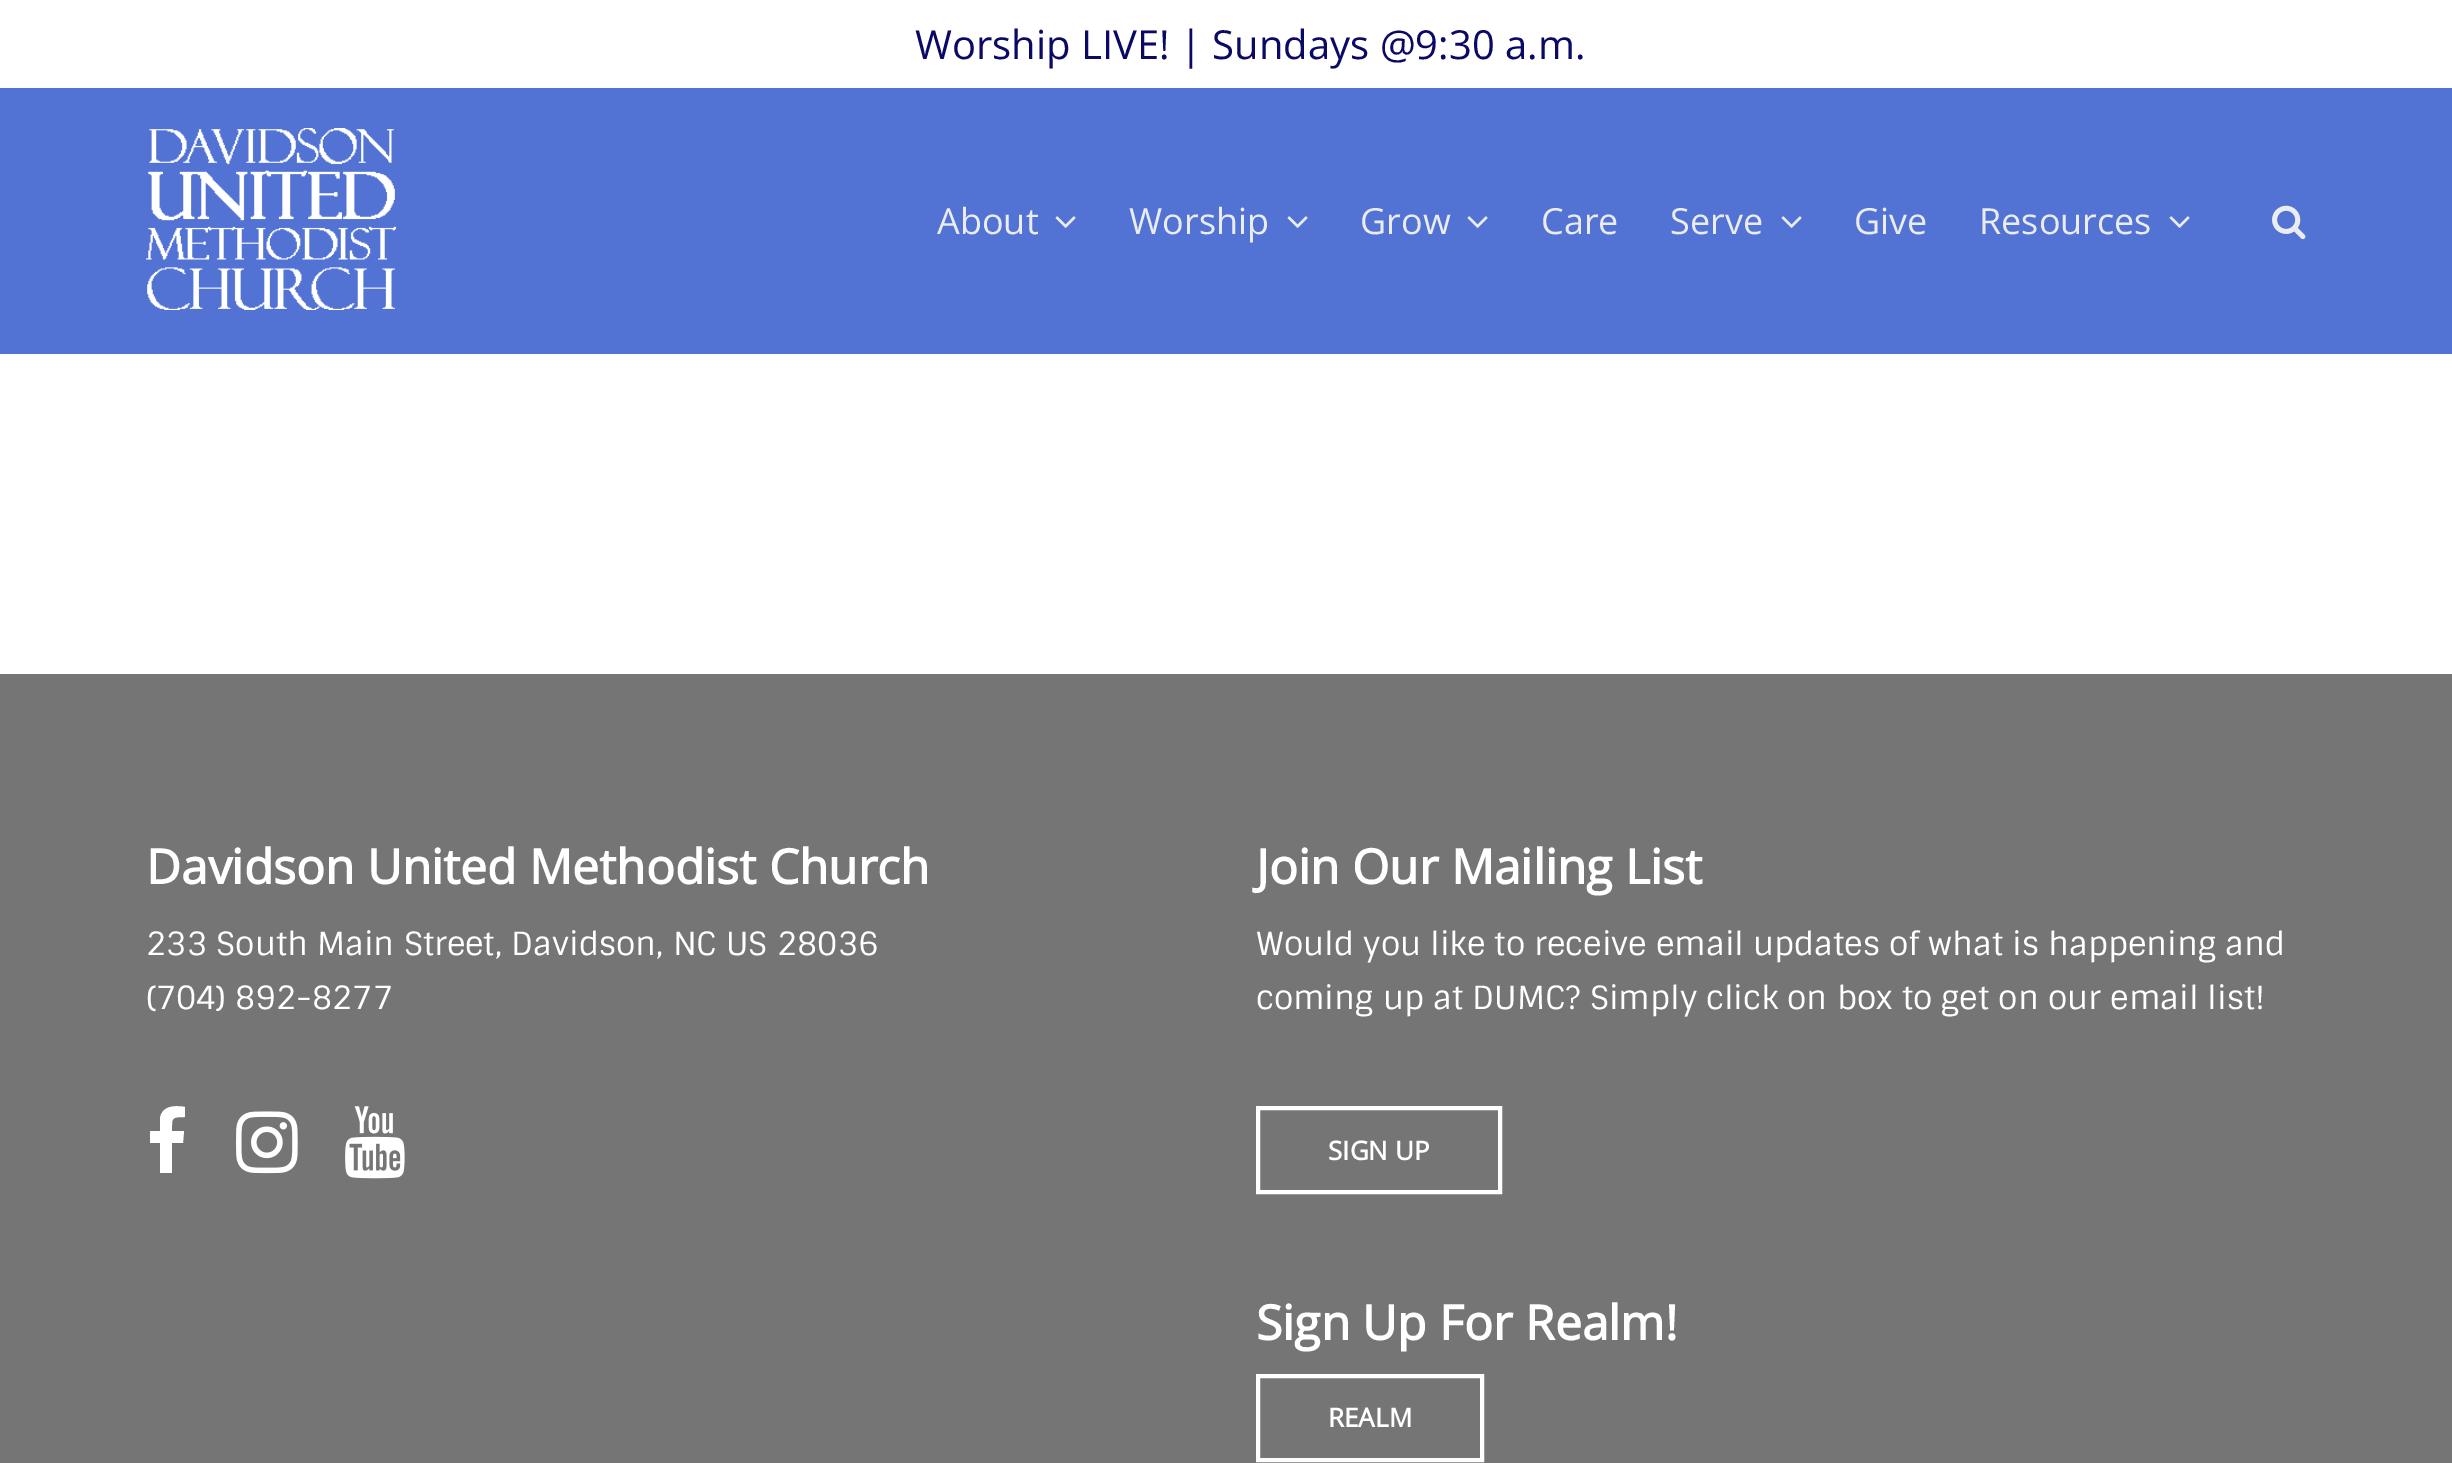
%!PS-Adobe-3.0
%%BoundingBox: 0 0 2452 1463
%%LanguageLevel: 3
%%Pages: 1
%%EndComments
%%BeginProlog
/setink { 3 { 255 div 3 1 roll } repeat setrgbcolor } def
/usefont { [ exch dup neg 0 0 3 -1 roll 0 0 ] selectfont } def
/drawtext { setink usefont moveto show } def
/fillbox { setink rectfill } def
/drawimage { 5 dict begin { /h /w /y /x /name } { exch def } forall
  gsave x y translate w h scale
  w h 8 [w 0 0 h 0 0] name (r) file false 3 colorimage grestore end } def
%%EndProlog
%%BeginSetup
<< /PageSize [2452 1463] >> setpagedevice
%%EndSetup
%%Page: 1 1
0 1463 translate 1 -1 scale
4 setmiterlimit
0 0 2452 1463 255 255 255 fillbox
(Worship LIVE! | Sundays @9:30 a.m.) 915 59 /OpenSans-Regular 40 10 10 102 drawtext
0 88 2452 266 82 115 212 fillbox
(assets/img1.rgb) 146 128 250 182 drawimage
(About) 937 234 /OpenSans-Regular 36 235 236 240 drawtext
(assets/img2.rgb) 1055 216 21 12 drawimage
(Worship) 1129 234 /OpenSans-Regular 36 235 236 240 drawtext
(assets/img2.rgb) 1287 216 21 12 drawimage
(Grow) 1360 234 /OpenSans-Regular 36 235 236 240 drawtext
(assets/img2.rgb) 1467 216 21 12 drawimage
(Care) 1541 234 /OpenSans-Regular 36 235 236 240 drawtext
(Serve) 1670 234 /OpenSans-Regular 36 235 236 240 drawtext
(assets/img2.rgb) 1781 216 21 12 drawimage
(Give) 1854 234 /OpenSans-Regular 36 235 236 240 drawtext
(Resources) 1979 234 /OpenSans-Regular 36 235 236 240 drawtext
(assets/img2.rgb) 2169 216 21 12 drawimage
(assets/img3.rgb) 2272 205 34 35 drawimage
0 674 2452 789 117 117 117 fillbox
(Davidson United Methodist Church) 146 884 /OpenSans-Bold 48 255 255 255 drawtext
(233 South Main Street, Davidson, NC US 28036) 146 955 /Sintony-Regular 32 255 255 255 drawtext
(\(704\) 892-8277) 146 1009 /Sintony-Regular 32 255 255 255 drawtext
185 1107 moveto 185 1117 lineto 171 1117 172 1118 172 1131 curveto 184 1131 lineto 183 1143 lineto 172 1143 lineto 172 1173 lineto 160 1173 lineto 160 1143 lineto 150 1143 lineto 150 1131 lineto 160 1131 lineto 160 1118 lineto 162 1106 174 1105 185 1107 curveto closepath fill
(assets/img4.rgb) 236 1111 62 63 drawimage
(assets/img5.rgb) 345 1106 60 73 drawimage
(Join Our Mailing List) 1256 884 /OpenSans-Bold 48 255 255 255 drawtext
(Would you like to receive email updates of what is happening and) 1256 955 /Sintony-Regular 32 255 255 255 drawtext
(coming up at DUMC? Simply click on box to get on our email list!) 1256 1009 /Sintony-Regular 32 255 255 255 drawtext
4 setlinewidth
1258 1108 242 84 rectstroke
(SIGN UP) 1328 1160 /OpenSans-Bold 26 255 255 255 drawtext
(Sign Up For Realm!) 1256 1340 /OpenSans-Bold 48 255 255 255 drawtext
1258 1376 224 84 rectstroke
(REALM) 1328 1427 /OpenSans-Bold 26 255 255 255 drawtext
showpage
%%EOF
